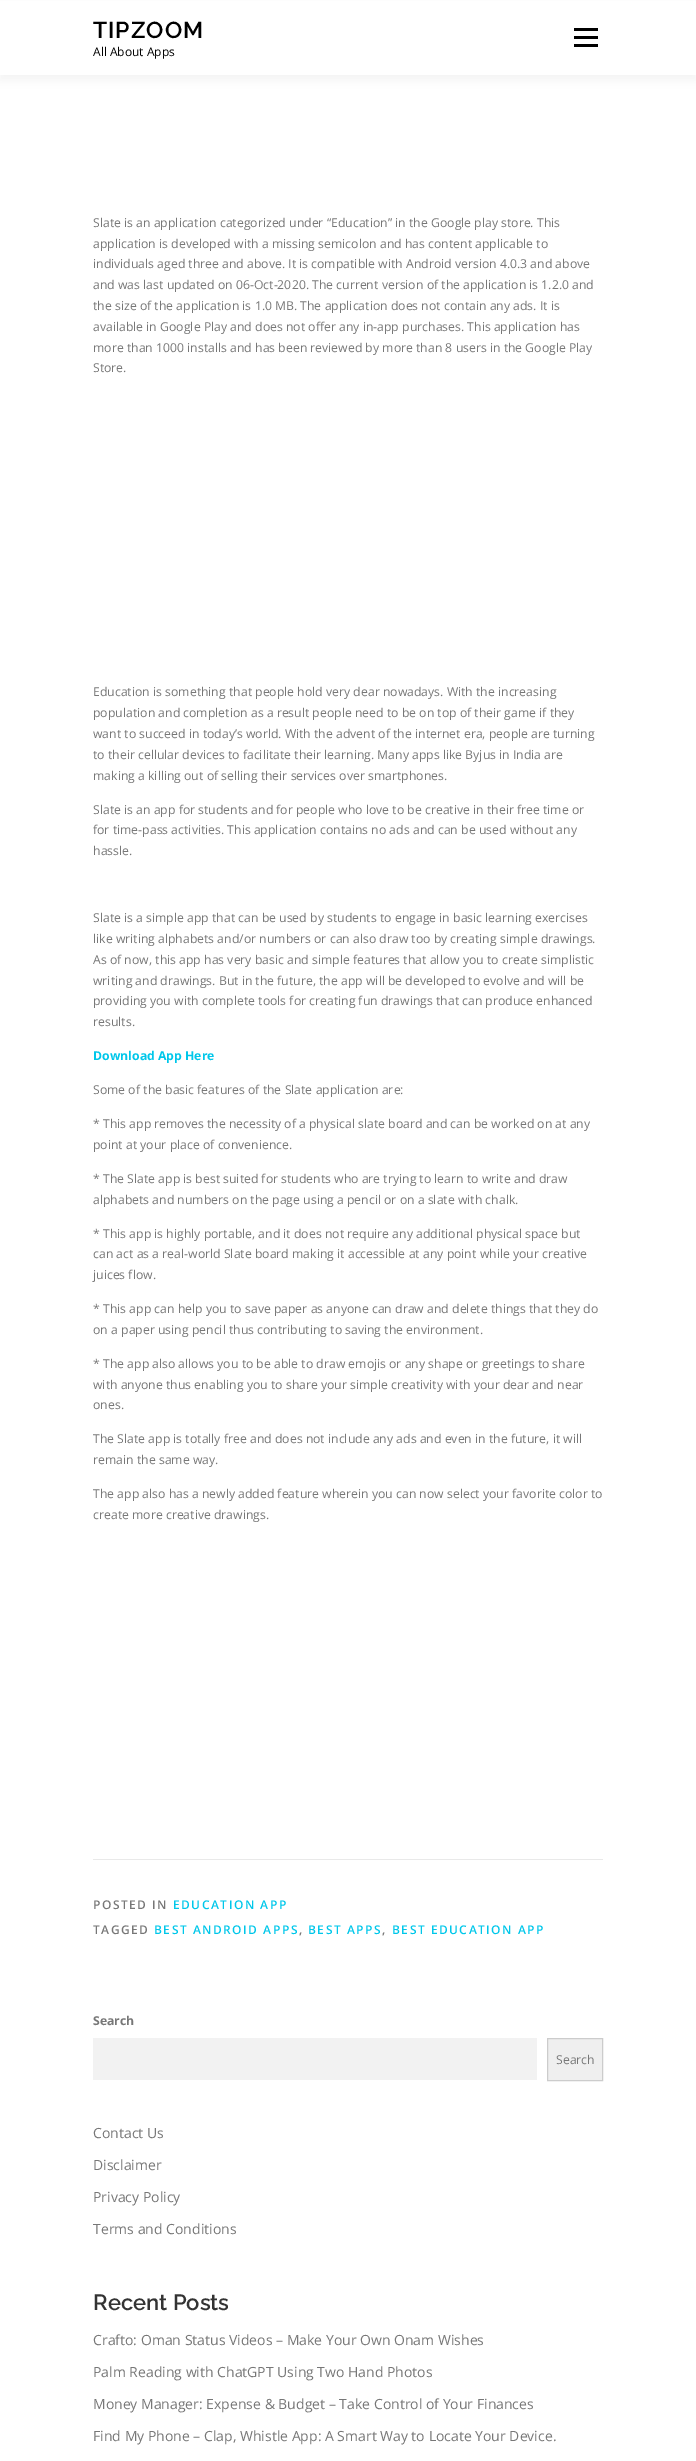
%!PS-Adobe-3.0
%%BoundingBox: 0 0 696 2461
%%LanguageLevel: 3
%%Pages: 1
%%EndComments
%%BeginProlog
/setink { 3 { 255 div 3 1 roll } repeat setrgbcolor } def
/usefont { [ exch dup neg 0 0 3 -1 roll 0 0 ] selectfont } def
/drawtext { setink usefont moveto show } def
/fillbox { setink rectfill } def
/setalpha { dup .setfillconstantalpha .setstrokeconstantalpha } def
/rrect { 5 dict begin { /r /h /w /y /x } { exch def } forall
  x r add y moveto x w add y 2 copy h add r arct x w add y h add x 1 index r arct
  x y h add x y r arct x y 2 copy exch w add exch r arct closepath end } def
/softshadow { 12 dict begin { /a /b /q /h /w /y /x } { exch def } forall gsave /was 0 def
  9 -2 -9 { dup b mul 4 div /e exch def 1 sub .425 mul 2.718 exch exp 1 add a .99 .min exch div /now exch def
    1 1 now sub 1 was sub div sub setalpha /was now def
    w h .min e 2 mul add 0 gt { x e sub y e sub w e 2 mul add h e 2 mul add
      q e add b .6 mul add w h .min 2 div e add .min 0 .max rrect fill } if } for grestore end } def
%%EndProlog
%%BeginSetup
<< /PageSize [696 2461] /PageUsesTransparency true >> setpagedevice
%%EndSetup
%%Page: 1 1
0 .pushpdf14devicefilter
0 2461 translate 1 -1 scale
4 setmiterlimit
0 0 696 2461 255 255 255 fillbox
50 50 50 setink
0 5 696 75 0 5 0.06 softshadow
0 1 696 74 255 255 255 fillbox
/Raleway-SemiBold 23 usefont
0 0 0 setink
93 38 moveto 1 0 (TIPZOOM) ashow
(All About Apps) 93 56 /OpenSans-Regular 12 0 0 0 drawtext
574 36 24 3 0 0 0 fillbox
574 28 24 3 0 0 0 fillbox
574 44 24 3 0 0 0 fillbox
(Slate is an application categorized under “Education” in the Google play store. This) 93 227 /OpenSans-Regular 12.25 119 119 119 drawtext
(application is developed with a missing semicolon and has content applicable to) 93 248 /OpenSans-Regular 12.25 119 119 119 drawtext
(individuals aged three and above. It is compatible with Android version 4.0.3 and above) 93 268 /OpenSans-Regular 12.25 119 119 119 drawtext
(and was last updated on 06-Oct-2020. The current version of the application is 1.2.0 and) 93 289 /OpenSans-Regular 12.25 119 119 119 drawtext
(the size of the application is 1.0 MB. The application does not contain any ads. It is) 93 310 /OpenSans-Regular 12.25 119 119 119 drawtext
(available in Google Play and does not offer any in-app purchases. This application has) 93 331 /OpenSans-Regular 12.25 119 119 119 drawtext
(more than 1000 installs and has been reviewed by more than 8 users in the Google Play) 93 352 /OpenSans-Regular 12.25 119 119 119 drawtext
(Store.) 93 372 /OpenSans-Regular 12.25 119 119 119 drawtext
(Education is something that people hold very dear nowadays. With the increasing) 93 696 /OpenSans-Regular 12.25 119 119 119 drawtext
(population and completion as a result people need to be on top of their game if they) 93 717 /OpenSans-Regular 12.25 119 119 119 drawtext
(want to succeed in today’s world. With the advent of the internet era, people are turning) 93 738 /OpenSans-Regular 12.25 119 119 119 drawtext
(to their cellular devices to facilitate their learning. Many apps like Byjus in India are) 93 759 /OpenSans-Regular 12.25 119 119 119 drawtext
(making a killing out of selling their services over smartphones.) 93 780 /OpenSans-Regular 12.25 119 119 119 drawtext
(Slate is an app for students and for people who love to be creative in their free time or) 93 814 /OpenSans-Regular 12.25 119 119 119 drawtext
(for time-pass activities. This application contains no ads and can be used without any) 93 834 /OpenSans-Regular 12.25 119 119 119 drawtext
(hassle.) 93 855 /OpenSans-Regular 12.25 119 119 119 drawtext
(Slate is a simple app that can be used by students to engage in basic learning exercises) 93 922 /OpenSans-Regular 12.25 119 119 119 drawtext
(like writing alphabets and/or numbers or can also draw too by creating simple drawings.) 93 943 /OpenSans-Regular 12.25 119 119 119 drawtext
(As of now, this app has very basic and simple features that allow you to create simplistic) 93 964 /OpenSans-Regular 12.25 119 119 119 drawtext
(writing and drawings. But in the future, the app will be developed to evolve and will be) 93 985 /OpenSans-Regular 12.25 119 119 119 drawtext
(providing you with complete tools for creating fun drawings that can produce enhanced) 93 1005 /OpenSans-Regular 12.25 119 119 119 drawtext
(results.) 93 1026 /OpenSans-Regular 12.25 119 119 119 drawtext
(Download App Here) 93 1060 /OpenSans-Bold 12.25 0 199 234 drawtext
(Some of the basic features of the Slate application are:) 93 1094 /OpenSans-Regular 12.25 119 119 119 drawtext
(* This app removes the necessity of a physical slate board and can be worked on at any) 93 1128 /OpenSans-Regular 12.25 119 119 119 drawtext
(point at your place of convenience.) 93 1149 /OpenSans-Regular 12.25 119 119 119 drawtext
(* The Slate app is best suited for students who are trying to learn to write and draw) 93 1183 /OpenSans-Regular 12.25 119 119 119 drawtext
(alphabets and numbers on the page using a pencil or on a slate with chalk.) 93 1204 /OpenSans-Regular 12.25 119 119 119 drawtext
(* This app is highly portable, and it does not require any additional physical space but) 93 1238 /OpenSans-Regular 12.25 119 119 119 drawtext
(can act as a real-world Slate board making it accessible at any point while your creative) 93 1258 /OpenSans-Regular 12.25 119 119 119 drawtext
(juices flow.) 93 1279 /OpenSans-Regular 12.25 119 119 119 drawtext
(* This app can help you to save paper as anyone can draw and delete things that they do) 93 1313 /OpenSans-Regular 12.25 119 119 119 drawtext
(on a paper using pencil thus contributing to saving the environment.) 93 1334 /OpenSans-Regular 12.25 119 119 119 drawtext
(* The app also allows you to be able to draw emojis or any shape or greetings to share) 93 1368 /OpenSans-Regular 12.25 119 119 119 drawtext
(with anyone thus enabling you to share your simple creativity with your dear and near) 93 1389 /OpenSans-Regular 12.25 119 119 119 drawtext
(ones.) 93 1409 /OpenSans-Regular 12.25 119 119 119 drawtext
(The Slate app is totally free and does not include any ads and even in the future, it will) 93 1443 /OpenSans-Regular 12.25 119 119 119 drawtext
(remain the same way.) 93 1464 /OpenSans-Regular 12.25 119 119 119 drawtext
(The app also has a newly added feature wherein you can now select your favorite color to) 93 1498 /OpenSans-Regular 12.25 119 119 119 drawtext
(create more creative drawings.) 93 1519 /OpenSans-Regular 12.25 119 119 119 drawtext
93 1859 510 1 233 233 233 fillbox
/OpenSans-SemiBold 12 usefont
119 119 119 setink
93 1909 moveto 1.5 0 (POSTED IN) ashow
0 199 234 setink
173 1909 moveto 1.5 0 (EDUCATION APP) ashow
119 119 119 setink
93 1934 moveto 1.5 0 (TAGGED) ashow
0 199 234 setink
154 1934 moveto 1.5 0 (BEST ANDROID APPS) ashow
119 119 119 setink
299 1934 moveto 1.5 0 (,) ashow
0 199 234 setink
308 1934 moveto 1.5 0 (BEST APPS) ashow
119 119 119 setink
382 1934 moveto 1.5 0 (,) ashow
0 199 234 setink
392 1934 moveto 1.5 0 (BEST EDUCATION APP) ashow
(Search) 93 2025 /OpenSans-Bold 12.25 119 119 119 drawtext
93 2038 444 42 242 242 242 fillbox
239 239 239 setink
547.5 2038.5 moveto 602.5 2038.5 lineto 602.5 2080.5 lineto 547.5 2080.5 lineto closepath gsave fill grestore
204 204 204 setink
stroke
(Search) 556 2064 /OpenSans-Regular 12.25 119 119 119 drawtext
(Contact Us) 93 2138 /OpenSans-Regular 14 119 119 119 drawtext
(Disclaimer) 93 2170 /OpenSans-Regular 14 119 119 119 drawtext
(Privacy Policy) 93 2202 /OpenSans-Regular 14 119 119 119 drawtext
(Terms and Conditions) 93 2234 /OpenSans-Regular 14 119 119 119 drawtext
(Recent Posts) 93 2310 /Raleway-SemiBold 22 51 51 51 drawtext
(Crafto: Oman Status Videos – Make Your Own Onam Wishes) 93 2345 /OpenSans-Regular 14 119 119 119 drawtext
(Palm Reading with ChatGPT Using Two Hand Photos) 93 2377 /OpenSans-Regular 14 119 119 119 drawtext
(Money Manager: Expense & Budget – Take Control of Your Finances) 93 2409 /OpenSans-Regular 14 119 119 119 drawtext
(Find My Phone – Clap, Whistle App: A Smart Way to Locate Your Device.) 93 2441 /OpenSans-Regular 14 119 119 119 drawtext
.poppdf14devicefilter showpage
%%EOF
